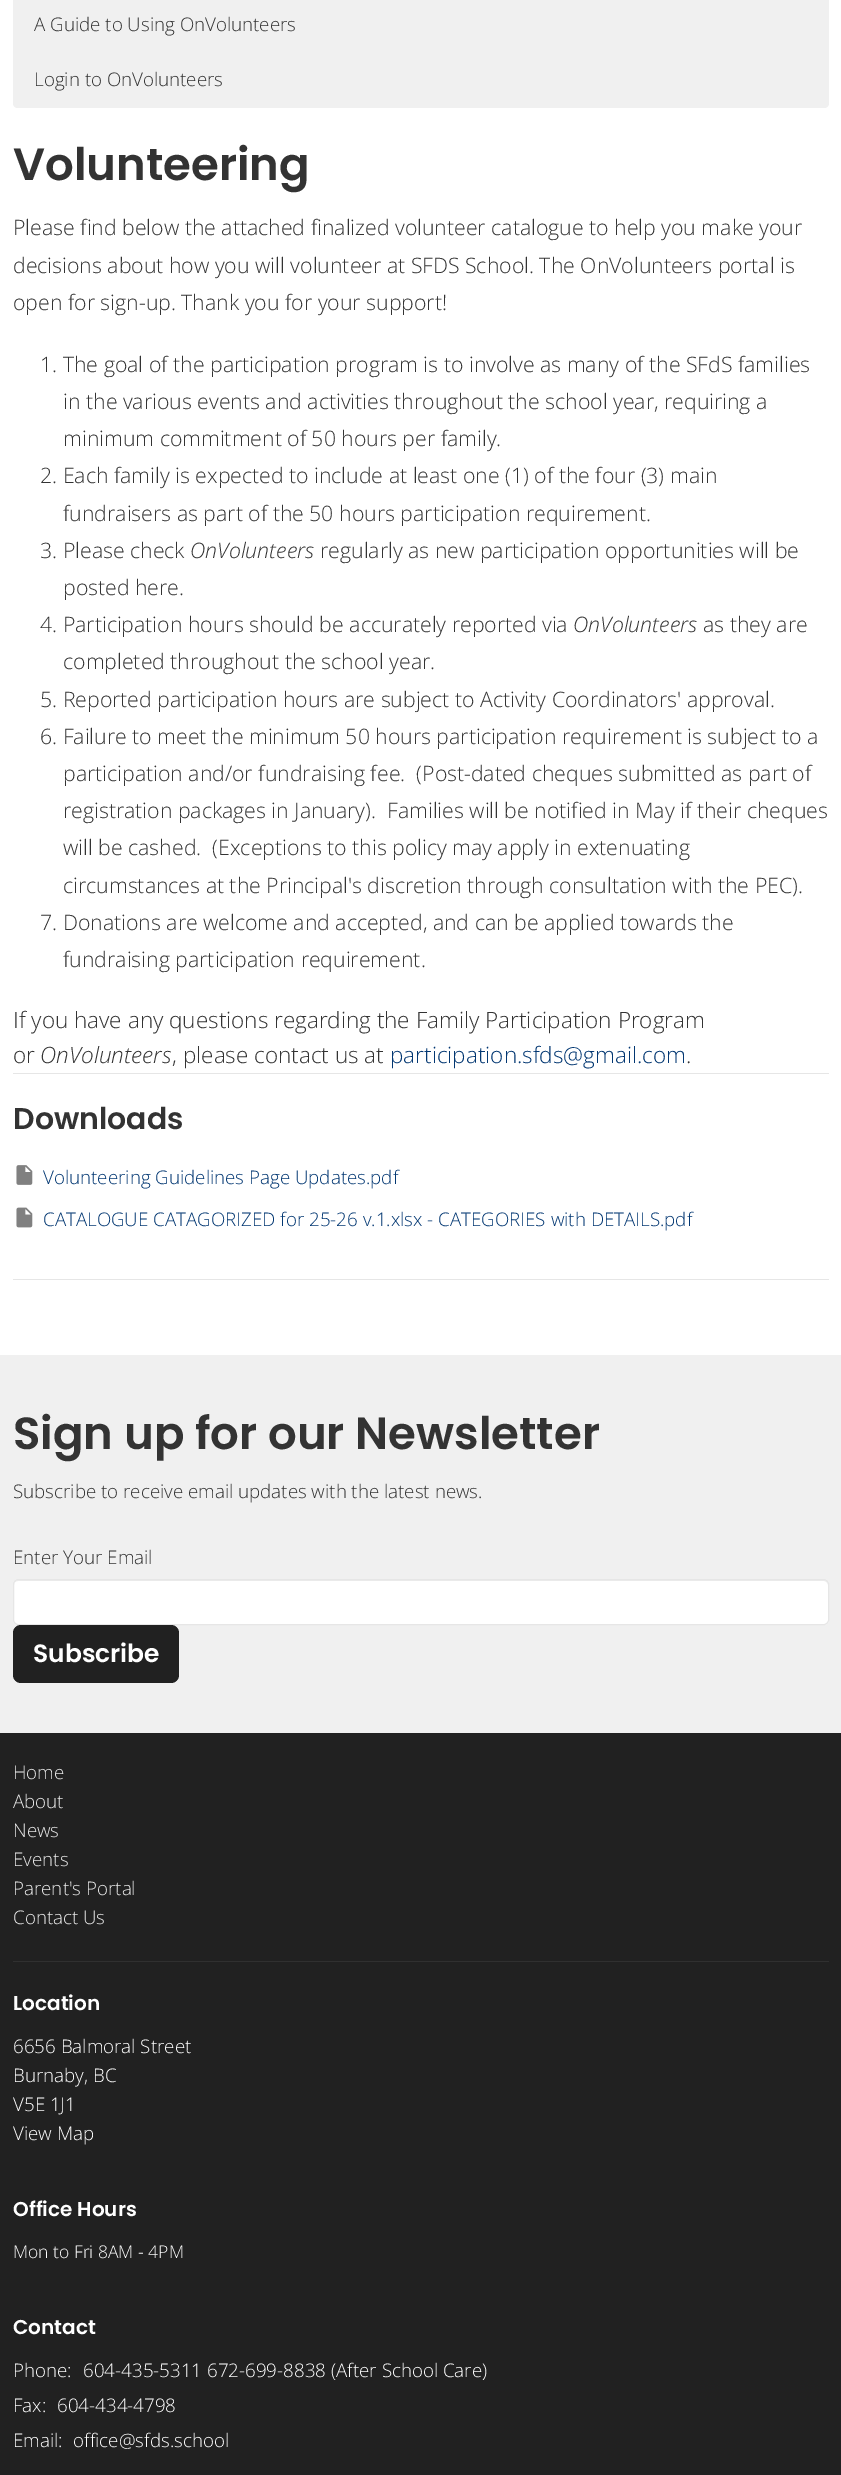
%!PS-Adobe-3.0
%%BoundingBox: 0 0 841 2475
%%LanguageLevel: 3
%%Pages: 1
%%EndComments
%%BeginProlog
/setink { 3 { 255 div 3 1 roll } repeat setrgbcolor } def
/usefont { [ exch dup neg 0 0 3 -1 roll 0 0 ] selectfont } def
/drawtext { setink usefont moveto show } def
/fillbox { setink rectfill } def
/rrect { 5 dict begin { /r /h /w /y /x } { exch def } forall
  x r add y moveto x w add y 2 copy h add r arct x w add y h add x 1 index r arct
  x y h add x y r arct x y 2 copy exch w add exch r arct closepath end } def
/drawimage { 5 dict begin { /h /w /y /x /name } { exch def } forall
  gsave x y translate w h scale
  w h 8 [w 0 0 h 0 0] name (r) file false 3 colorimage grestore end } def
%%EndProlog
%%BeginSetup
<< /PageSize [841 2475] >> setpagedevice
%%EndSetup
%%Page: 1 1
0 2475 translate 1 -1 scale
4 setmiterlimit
0 0 841 2475 255 255 255 fillbox
13 0 816 51 240 240 240 fillbox
(A Guide to Using OnVolunteers) 34 31 /OpenSans-Light 18.75 51 51 51 drawtext
240 240 240 setink
13 51 moveto 829 51 lineto 829 103 lineto 829 106 827 108 824 108 curveto 18 108 lineto 15 108 13 106 13 103 curveto closepath fill
(Login to OnVolunteers) 34 86 /OpenSans-Light 18.75 51 51 51 drawtext
(Volunteering) 13 180 /Poppins-SemiBold 45 51 51 51 drawtext
(Please find below the attached finalized volunteer catalogue to help you make your) 13 235 /OpenSans-Light 21.25 51 51 51 drawtext
(decisions about how you will volunteer at SFDS School. The OnVolunteers portal is) 13 273 /OpenSans-Light 21.25 51 51 51 drawtext
(open for sign-up. Thank you for your support!) 13 310 /OpenSans-Light 21.25 51 51 51 drawtext
(1. The goal of the participation program is to involve as many of the SFdS families) 40 372 /OpenSans-Light 21.25 51 51 51 drawtext
(in the various events and activities throughout the school year, requiring a) 63 409 /OpenSans-Light 21.25 51 51 51 drawtext
(minimum commitment of 50 hours per family.) 63 446 /OpenSans-Light 21.25 51 51 51 drawtext
(2. Each family is expected to include at least one \(1\) of the four \(3\) main) 40 483 /OpenSans-Light 21.25 51 51 51 drawtext
(fundraisers as part of the 50 hours participation requirement.) 63 521 /OpenSans-Light 21.25 51 51 51 drawtext
(3. Please check) 40 558 /OpenSans-Light 21.25 51 51 51 drawtext
(OnVolunteers) 190 558 /OpenSans-LightItalic 21.25 51 51 51 drawtext
(regularly as new participation opportunities will be) 320 558 /OpenSans-Light 21.25 51 51 51 drawtext
(posted here.) 63 595 /OpenSans-Light 21.25 51 51 51 drawtext
(4. Participation hours should be accurately reported via) 40 632 /OpenSans-Light 21.25 51 51 51 drawtext
(OnVolunteers) 573 632 /OpenSans-LightItalic 21.25 51 51 51 drawtext
(as they are) 703 632 /OpenSans-Light 21.25 51 51 51 drawtext
(completed throughout the school year.) 63 669 /OpenSans-Light 21.25 51 51 51 drawtext
(5. Reported participation hours are subject to Activity Coordinators' approval.) 40 707 /OpenSans-Light 21.25 51 51 51 drawtext
(6. Failure to meet the minimum 50 hours participation requirement is subject to a) 40 744 /OpenSans-Light 21.25 51 51 51 drawtext
(participation and/or fundraising fee.  \(Post-dated cheques submitted as part of) 63 781 /OpenSans-Light 21.25 51 51 51 drawtext
(registration packages in January\).) 63 818 /OpenSans-Light 21.25 51 51 51 drawtext
(Families will be notified in May if their cheques) 387 818 /OpenSans-Light 21.25 51 51 51 drawtext
(will be cashed.  \(Exceptions to this policy may apply in extenuating) 63 855 /OpenSans-Light 21.25 51 51 51 drawtext
(circumstances at the Principal's discretion through consultation with the PEC\).) 63 893 /OpenSans-Light 21.25 51 51 51 drawtext
(7. Donations are welcome and accepted, and can be applied towards the) 40 930 /OpenSans-Light 21.25 51 51 51 drawtext
(fundraising participation requirement.) 63 967 /OpenSans-Light 21.25 51 51 51 drawtext
(If you have any questions regarding the Family Participation Program) 13 1028 /OpenSans-Light 22.5 51 51 51 drawtext
(or) 13 1063 /OpenSans-Light 22.5 51 51 51 drawtext
(OnVolunteers) 40 1063 /OpenSans-LightItalic 22.5 51 51 51 drawtext
(, please contact us at) 172 1063 /OpenSans-Light 22.5 51 51 51 drawtext
(participation.sfds@gmail.com) 390 1063 /OpenSans-Light 22.5 2 55 114 drawtext
(.) 686 1063 /OpenSans-Light 22.5 51 51 51 drawtext
13 1073 816 1 230 230 230 fillbox
13 1279 816 1 230 230 230 fillbox
(Downloads) 13 1129 /Poppins-SemiBold 30 51 51 51 drawtext
(assets/img1.rgb) 16 1165 17 20 drawimage
(Volunteering Guidelines Page Updates.pdf) 43 1184 /OpenSans-Light 18.75 2 55 114 drawtext
(assets/img2.rgb) 16 1207 17 21 drawimage
(CATALOGUE CATAGORIZED for 25-26 v.1.xlsx - CATEGORIES with DETAILS.pdf) 43 1226 /OpenSans-Light 18.75 2 55 114 drawtext
0 1355 841 378 240 240 240 fillbox
(Sign up for our Newsletter) 13 1449 /Poppins-SemiBold 45 51 51 51 drawtext
(Subscribe to receive email updates with the latest news.) 13 1498 /OpenSans-Light 18.75 51 51 51 drawtext
(Enter Your Email) 13 1564 /OpenSans-Light 18.75 51 51 51 drawtext
255 255 255 setink
13 1579 816 46 5 rrect fill
236 236 236 setink
18 1581 moveto 824 1581 lineto 826 1581 828 1583 828 1585 curveto 828 1582 827 1580 824 1580 curveto 18 1580 lineto 15 1580 14 1582 14 1585 curveto 14 1583 15 1581 18 1581 curveto closepath fill
230 230 230 setink
13.5 1579.5 815 45 4.5 rrect stroke
33 33 33 setink
13 1625 166 58 8 rrect fill
(Subscribe) 33 1662 /Poppins-SemiBold 25 255 255 255 drawtext
0 1733 841 742 33 33 33 fillbox
(Home) 13 1779 /OpenSans-Light 18.75 233 233 233 drawtext
(About) 13 1808 /OpenSans-Light 18.75 233 233 233 drawtext
(News) 13 1837 /OpenSans-Light 18.75 233 233 233 drawtext
(Events) 13 1866 /OpenSans-Light 18.75 233 233 233 drawtext
(Parent's Portal) 13 1895 /OpenSans-Light 18.75 233 233 233 drawtext
(Contact Us) 13 1924 /OpenSans-Light 18.75 233 233 233 drawtext
13 1961 816 1 48 48 48 fillbox
(Location) 13 2010 /Poppins-SemiBold 20 255 255 255 drawtext
(6656 Balmoral Street) 13 2053 /OpenSans-Light 18.75 255 255 255 drawtext
(Burnaby, BC) 13 2082 /OpenSans-Light 18.75 255 255 255 drawtext
(V5E 1J1) 13 2111 /OpenSans-Light 18.75 255 255 255 drawtext
(View Map) 13 2140 /OpenSans-Light 18.75 255 255 255 drawtext
(Office Hours) 13 2216 /Poppins-SemiBold 20 255 255 255 drawtext
(Mon to Fri 8AM - 4PM) 13 2258 /OpenSans-Light 17.5 255 255 255 drawtext
(Contact) 13 2334 /Poppins-SemiBold 20 255 255 255 drawtext
(Phone:) 13 2377 /OpenSans-Light 18.75 255 255 255 drawtext
(604-435-5311 672-699-8838 \(After School Care\)) 83 2377 /OpenSans-Light 18.75 255 255 255 drawtext
(Fax:) 13 2412 /OpenSans-Light 18.75 255 255 255 drawtext
(604-434-4798) 57 2412 /OpenSans-Light 18.75 255 255 255 drawtext
(Email:) 13 2447 /OpenSans-Light 18.75 255 255 255 drawtext
(office@sfds.school) 73 2447 /OpenSans-Light 18.75 255 255 255 drawtext
showpage
%%EOF
